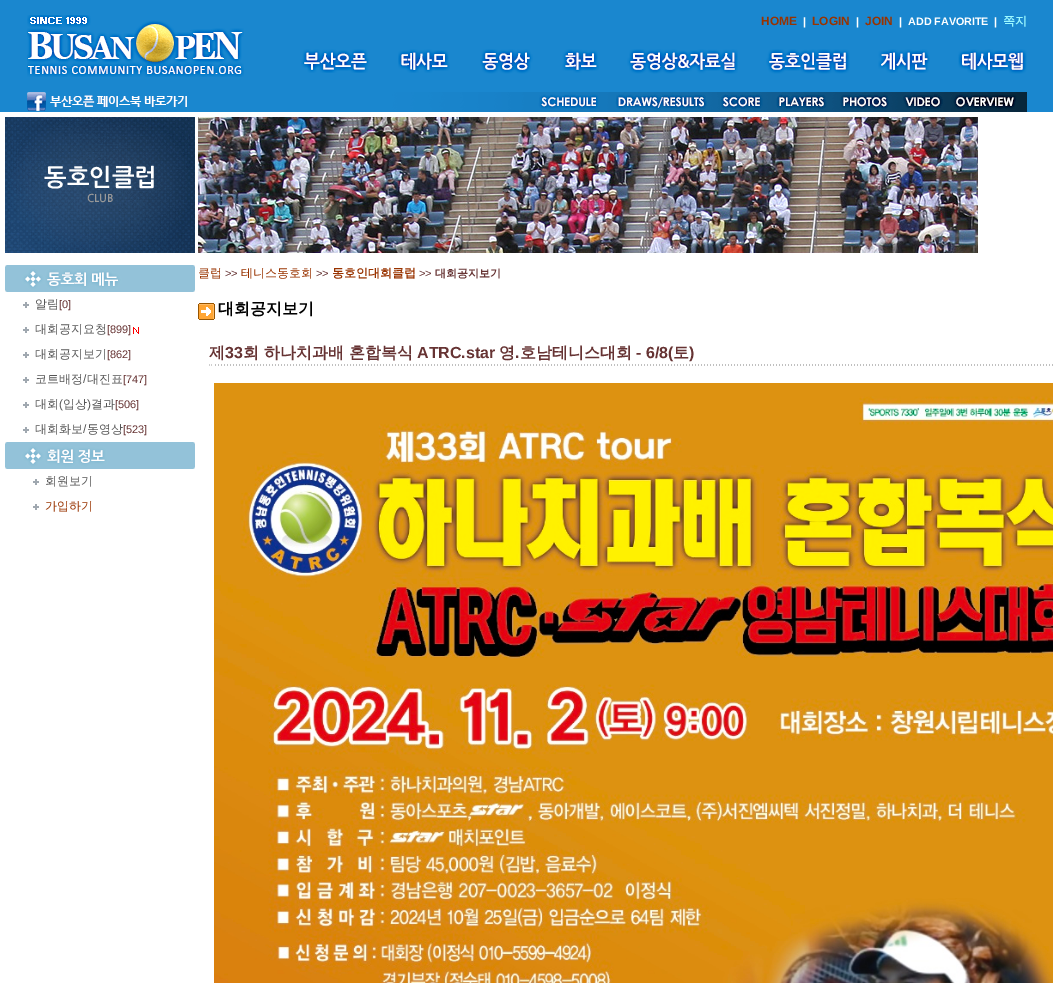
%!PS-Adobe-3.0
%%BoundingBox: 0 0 1053 983
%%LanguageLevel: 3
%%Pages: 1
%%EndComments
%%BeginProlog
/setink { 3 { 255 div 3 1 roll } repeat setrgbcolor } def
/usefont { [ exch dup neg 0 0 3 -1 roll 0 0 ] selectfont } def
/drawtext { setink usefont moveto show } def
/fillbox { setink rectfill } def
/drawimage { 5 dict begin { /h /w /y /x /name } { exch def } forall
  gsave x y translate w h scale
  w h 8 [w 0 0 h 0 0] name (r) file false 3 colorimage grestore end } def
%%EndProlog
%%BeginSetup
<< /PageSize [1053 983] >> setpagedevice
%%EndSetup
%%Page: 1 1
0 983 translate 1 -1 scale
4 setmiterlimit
0 0 1053 983 26 135 207 fillbox
(assets/img1.rgb) 27 15 217 62 drawimage
(HOME) 761 25 /LiberationSans-Bold 12 153 51 0 drawtext
(|) 803 25 /LiberationSans-Bold 10.75 255 255 255 drawtext
(LOGIN) 812 25 /LiberationSans-Bold 12 153 51 0 drawtext
(|) 856 25 /LiberationSans-Bold 10.75 255 255 255 drawtext
(JOIN) 865 25 /LiberationSans-Bold 12 153 51 0 drawtext
(|) 899 25 /LiberationSans-Bold 10.75 255 255 255 drawtext
(ADD FAVORITE) 908 25 /LiberationSans-Bold 10.75 255 255 255 drawtext
(|) 994 25 /LiberationSans-Bold 10.75 255 255 255 drawtext
(쪽지) 1003 25 /WenQuanYiZenHei-Bold 12 156 249 255 drawtext
(assets/img2.rgb) 301 49 69 24 drawimage
(assets/img3.rgb) 398 49 52 24 drawimage
(assets/img4.rgb) 480 49 53 25 drawimage
(assets/img5.rgb) 562 49 37 24 drawimage
(assets/img6.rgb) 627 49 111 25 drawimage
(assets/img7.rgb) 766 49 84 25 drawimage
(assets/img8.rgb) 878 49 52 24 drawimage
(assets/img9.rgb) 958 49 69 25 drawimage
(assets/img10.rgb) 27 92 1000 20 drawimage
0 112 1053 871 255 255 255 fillbox
(assets/img11.rgb) 5 117 190 136 drawimage
(동호인클럽) 44 186 /NanumGothic-Bold 24 255 255 255 drawtext
(CLUB) 87 202 /NanumGothic-Bold 10.75 153 153 153 drawtext
(assets/img12.rgb) 5 265 190 27 drawimage
(assets/img13.rgb) 23 302 6 6 drawimage
(알림) 35 308 /WenQuanYiZenHei-Medium 12 85 85 85 drawtext
([0]) 59 308 /LiberationSans-Regular 11 102 51 51 drawtext
(assets/img13.rgb) 23 327 6 6 drawimage
(대회공지요청) 35 333 /WenQuanYiZenHei-Medium 12 85 85 85 drawtext
([899]) 107 333 /LiberationSans-Regular 11 102 51 51 drawtext
(assets/img14.rgb) 133 327 6 7 drawimage
(assets/img13.rgb) 23 352 6 6 drawimage
(대회공지보기) 35 358 /WenQuanYiZenHei-Medium 12 85 85 85 drawtext
([862]) 107 358 /LiberationSans-Regular 11 102 51 51 drawtext
(코트배정 대진표) 35 383 /WenQuanYiZenHei-Medium 12 85 85 85 drawtext
(assets/img13.rgb) 23 377 6 6 drawimage
(/) 83 383 /LiberationSans-Regular 12 85 85 85 drawtext
([747]) 123 383 /LiberationSans-Regular 11 102 51 51 drawtext
(assets/img13.rgb) 23 402 6 6 drawimage
(대회) 35 408 /WenQuanYiZenHei-Medium 12 85 85 85 drawtext
(\() 59 408 /LiberationSans-Regular 12 85 85 85 drawtext
(입상) 63 408 /WenQuanYiZenHei-Medium 12 85 85 85 drawtext
(\)) 87 408 /LiberationSans-Regular 12 85 85 85 drawtext
(결과) 91 408 /WenQuanYiZenHei-Medium 12 85 85 85 drawtext
([506]) 115 408 /LiberationSans-Regular 11 102 51 51 drawtext
(대회화보 동영상) 35 433 /WenQuanYiZenHei-Medium 12 85 85 85 drawtext
(assets/img13.rgb) 23 427 6 6 drawimage
(/) 83 433 /LiberationSans-Regular 12 85 85 85 drawtext
([523]) 123 433 /LiberationSans-Regular 11 102 51 51 drawtext
(assets/img15.rgb) 5 442 190 27 drawimage
(assets/img13.rgb) 33 479 6 6 drawimage
(회원보기) 45 485 /WenQuanYiZenHei-Medium 12 85 85 85 drawtext
(assets/img13.rgb) 33 504 6 6 drawimage
(가입하기) 45 510 /WenQuanYiZenHei-Medium 12 153 51 0 drawtext
(assets/img16.rgb) 198 117 780 136 drawimage
(클럽) 198 277 /WenQuanYiZenHei-Medium 12 153 51 0 drawtext
(>>) 225 277 /LiberationSans-Regular 11 102 51 51 drawtext
(테니스동호회) 241 277 /WenQuanYiZenHei-Medium 12 153 51 0 drawtext
(>>) 316 277 /LiberationSans-Regular 11 102 51 51 drawtext
(동호인대회클럽) 332 277 /WenQuanYiZenHei-Bold 12 153 51 0 drawtext
(>>) 419 277 /LiberationSans-Regular 11 102 51 51 drawtext
(대회공지보기) 435 277 /WenQuanYiZenHei-Bold 11 102 51 51 drawtext
(assets/img17.rgb) 198 303 17 17 drawimage
(대회공지보기) 218 314 /WenQuanYiZenHei-Bold 16 0 0 0 drawtext
(제) 209 358 /WenQuanYiZenHei-Bold 16 102 51 51 drawtext
(33) 225 358 /LiberationSans-Bold 16 102 51 51 drawtext
(회 하나치과배 혼합복식) 243 358 /WenQuanYiZenHei-Bold 16 102 51 51 drawtext
(ATRC.star) 417 358 /LiberationSans-Bold 16 102 51 51 drawtext
(영) 499 358 /WenQuanYiZenHei-Bold 16 102 51 51 drawtext
(.) 515 358 /LiberationSans-Bold 16 102 51 51 drawtext
(호남테니스대회) 520 358 /WenQuanYiZenHei-Bold 16 102 51 51 drawtext
(- 6/8\() 636 358 /LiberationSans-Bold 16 102 51 51 drawtext
(토) 673 358 /WenQuanYiZenHei-Bold 16 102 51 51 drawtext
(\)) 689 358 /LiberationSans-Bold 16 102 51 51 drawtext
(assets/img18.rgb) 213 364 840 2 drawimage
(assets/img19.rgb) 209 364 4 2 drawimage
(assets/img20.rgb) 214 383 839 600 drawimage
showpage
%%EOF
